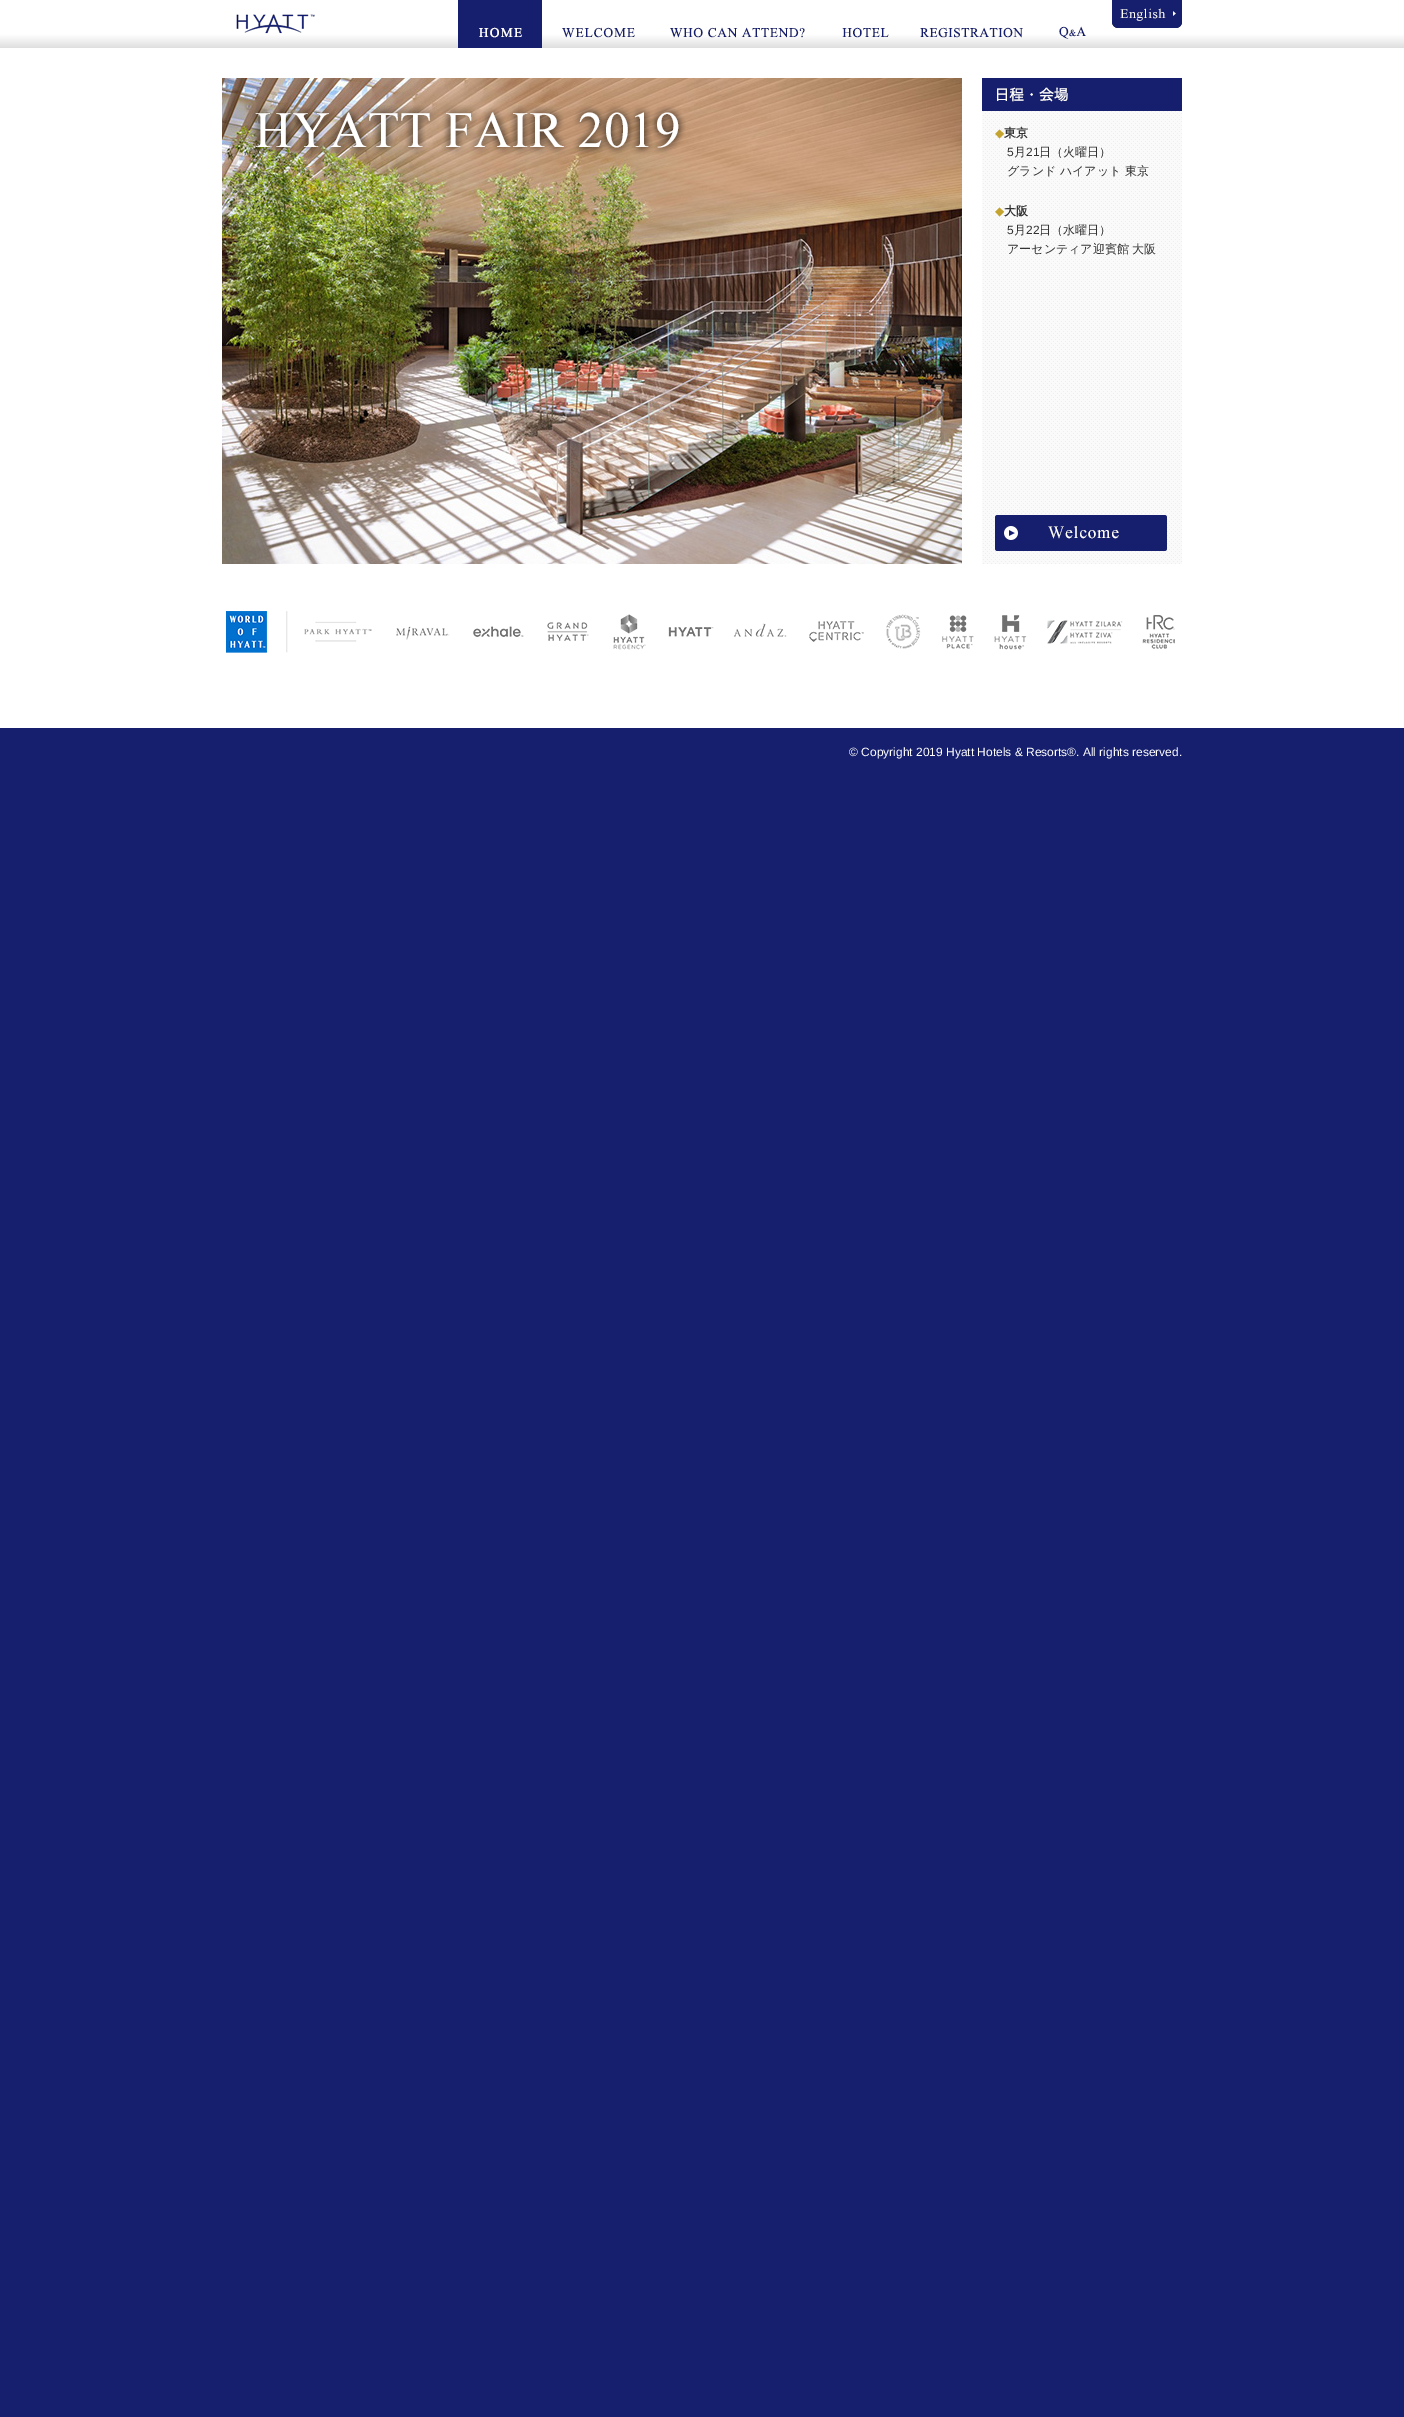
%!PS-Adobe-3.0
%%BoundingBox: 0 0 1404 2417
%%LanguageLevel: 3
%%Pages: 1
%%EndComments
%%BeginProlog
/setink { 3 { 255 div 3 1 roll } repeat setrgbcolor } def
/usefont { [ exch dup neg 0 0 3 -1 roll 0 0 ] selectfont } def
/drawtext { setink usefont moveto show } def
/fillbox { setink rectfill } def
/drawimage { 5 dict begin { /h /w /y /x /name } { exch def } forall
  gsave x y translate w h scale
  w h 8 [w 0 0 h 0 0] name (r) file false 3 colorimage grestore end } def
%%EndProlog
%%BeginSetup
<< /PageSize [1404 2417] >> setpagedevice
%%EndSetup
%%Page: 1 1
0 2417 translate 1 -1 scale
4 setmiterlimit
0 0 1404 2417 21 31 109 fillbox
(assets/img1.rgb) 0 0 1404 48 drawimage
(assets/img2.rgb) 236 14 79 20 drawimage
(assets/img3.rgb) 458 0 84 48 drawimage
(assets/img4.rgb) 562 27 73 11 drawimage
(assets/img5.rgb) 670 27 135 11 drawimage
(assets/img6.rgb) 842 27 47 11 drawimage
(assets/img7.rgb) 920 27 103 11 drawimage
(assets/img8.rgb) 1059 26 27 13 drawimage
(assets/img9.rgb) 1112 0 70 28 drawimage
0 48 1404 680 255 255 255 fillbox
(assets/img10.rgb) 222 78 740 486 drawimage
(assets/img11.rgb) 252 105 434 50 drawimage
(assets/img12.rgb) 982 111 200 453 drawimage
(assets/img13.rgb) 982 78 200 33 drawimage
(◆) 995 137 /DejaVuSans-Regular 12 196 163 46 drawtext
(東京) 1004 137 /WenQuanYiZenHei-Bold 12 51 51 51 drawtext
(5) 1007 156 /LiberationSans-Regular 12 51 51 51 drawtext
(月) 1014 156 /WenQuanYiZenHei-Medium 12 51 51 51 drawtext
(21) 1026 156 /LiberationSans-Regular 12 51 51 51 drawtext
(日（火曜日）) 1039 156 /WenQuanYiZenHei-Medium 12 51 51 51 drawtext
(グランド ハイアット 東京) 1007 175 /WenQuanYiZenHei-Medium 12 51 51 51 drawtext
(◆) 995 215 /DejaVuSans-Regular 12 196 163 46 drawtext
(大阪) 1004 215 /WenQuanYiZenHei-Bold 12 51 51 51 drawtext
(5) 1007 234 /LiberationSans-Regular 12 51 51 51 drawtext
(月) 1014 234 /WenQuanYiZenHei-Medium 12 51 51 51 drawtext
(22) 1026 234 /LiberationSans-Regular 12 51 51 51 drawtext
(日（水曜日）) 1039 234 /WenQuanYiZenHei-Medium 12 51 51 51 drawtext
(アーセンティア迎賓館 大阪) 1007 253 /WenQuanYiZenHei-Medium 12 51 51 51 drawtext
(assets/img14.rgb) 995 515 172 36 drawimage
(assets/img15.rgb) 226 611 42 42 drawimage
(assets/img16.rgb) 286 611 2 42 drawimage
(assets/img17.rgb) 304 621 68 21 drawimage
(assets/img18.rgb) 396 626 54 14 drawimage
(assets/img19.rgb) 473 626 51 11 drawimage
(assets/img20.rgb) 547 622 42 20 drawimage
(assets/img21.rgb) 613 614 33 36 drawimage
(assets/img22.rgb) 668 627 46 10 drawimage
(assets/img23.rgb) 733 623 54 14 drawimage
(assets/img24.rgb) 809 621 55 21 drawimage
(assets/img25.rgb) 886 614 35 35 drawimage
(assets/img26.rgb) 942 615 32 34 drawimage
(assets/img27.rgb) 994 615 33 35 drawimage
(assets/img28.rgb) 1047 620 76 24 drawimage
(assets/img29.rgb) 1142 614 33 35 drawimage
(© Copyright 2019 Hyatt Hotels & Resorts®. All rights reserved.) 849 756 /LiberationSans-Regular 12 255 255 255 drawtext
showpage
%%EOF
